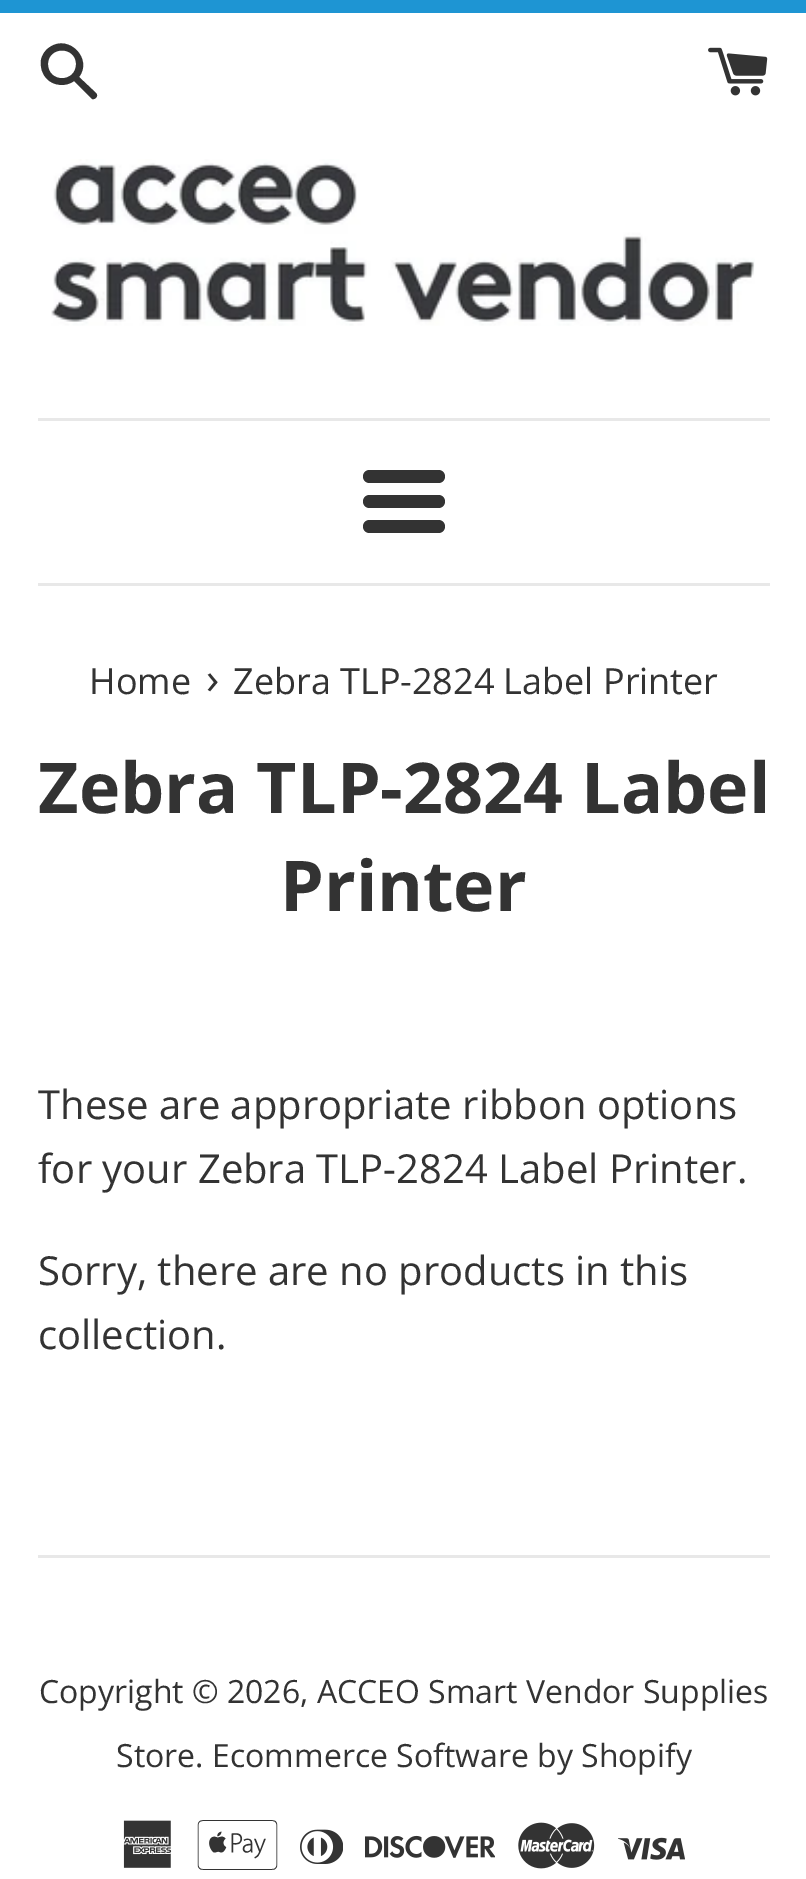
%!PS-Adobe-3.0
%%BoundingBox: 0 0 806 1879
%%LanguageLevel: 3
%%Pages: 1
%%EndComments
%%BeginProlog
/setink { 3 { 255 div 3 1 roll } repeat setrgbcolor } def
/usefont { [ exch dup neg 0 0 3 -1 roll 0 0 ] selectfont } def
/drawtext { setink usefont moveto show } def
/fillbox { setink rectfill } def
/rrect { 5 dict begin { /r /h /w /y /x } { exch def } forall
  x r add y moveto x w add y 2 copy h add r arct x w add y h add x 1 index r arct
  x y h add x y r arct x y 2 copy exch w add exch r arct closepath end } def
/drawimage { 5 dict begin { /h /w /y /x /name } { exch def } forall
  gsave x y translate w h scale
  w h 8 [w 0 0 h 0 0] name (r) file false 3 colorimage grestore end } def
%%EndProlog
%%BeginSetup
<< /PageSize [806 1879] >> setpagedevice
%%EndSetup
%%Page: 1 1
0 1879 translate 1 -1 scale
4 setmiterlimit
0 0 806 1879 255 255 255 fillbox
0 0 806 13 30 149 211 fillbox
51 51 51 setink
96 93 moveto 79 77 lineto 93 59 69 34 50 47 curveto 45 50 42 55 41 60 curveto 40 67 42 74 47 79 curveto 54 86 66 87 74 81 curveto 92 99 lineto 95 100 99 96 96 93 curveto closepath 48 64 moveto 48 46 76 46 76 64 curveto 76 83 48 83 48 64 curveto closepath fill
(assets/img1.rgb) 708 47 60 49 drawimage
(assets/img2.rgb) 51 159 704 167 drawimage
38 418 732 3 232 232 232 fillbox
51 51 51 setink
363 470 82 13 6.5 rrect fill
363 495 82 13 6.5 rrect fill
363 520 82 13 6.5 rrect fill
38 583 732 3 232 232 232 fillbox
(Home) 89 694 /OpenSans-Regular 36 51 51 51 drawtext
(›) 206 694 /OpenSans-Regular 44 51 51 51 drawtext
(Zebra TLP-2824 Label Printer) 233 694 /OpenSans-Regular 36 51 51 51 drawtext
(Zebra TLP-2824 Label) 38 813 /OpenSans-Bold 70 51 51 51 drawtext
(Printer) 280 911 /OpenSans-Bold 70 51 51 51 drawtext
(These are appropriate ribbon options) 38 1119 /OpenSans-Regular 40 51 51 51 drawtext
(for your Zebra TLP-2824 Label Printer.) 38 1183 /OpenSans-Regular 40 51 51 51 drawtext
(Sorry, there are no products in this) 38 1285 /OpenSans-Regular 40 51 51 51 drawtext
(collection.) 38 1349 /OpenSans-Regular 40 51 51 51 drawtext
38 1555 732 3 232 232 232 fillbox
(Copyright © 2026, ACCEO Smart Vendor Supplies) 39 1703 /OpenSans-Regular 32 51 51 51 drawtext
(Store. Ecommerce Software by Shopify) 116 1767 /OpenSans-Regular 32 51 51 51 drawtext
(assets/img3.rgb) 123 1820 49 48 drawimage
(assets/img4.rgb) 197 1820 81 50 drawimage
(assets/img5.rgb) 300 1829 43 35 drawimage
(assets/img6.rgb) 365 1835 130 23 drawimage
(assets/img7.rgb) 518 1822 77 47 drawimage
(assets/img8.rgb) 618 1837 67 23 drawimage
showpage
%%EOF
